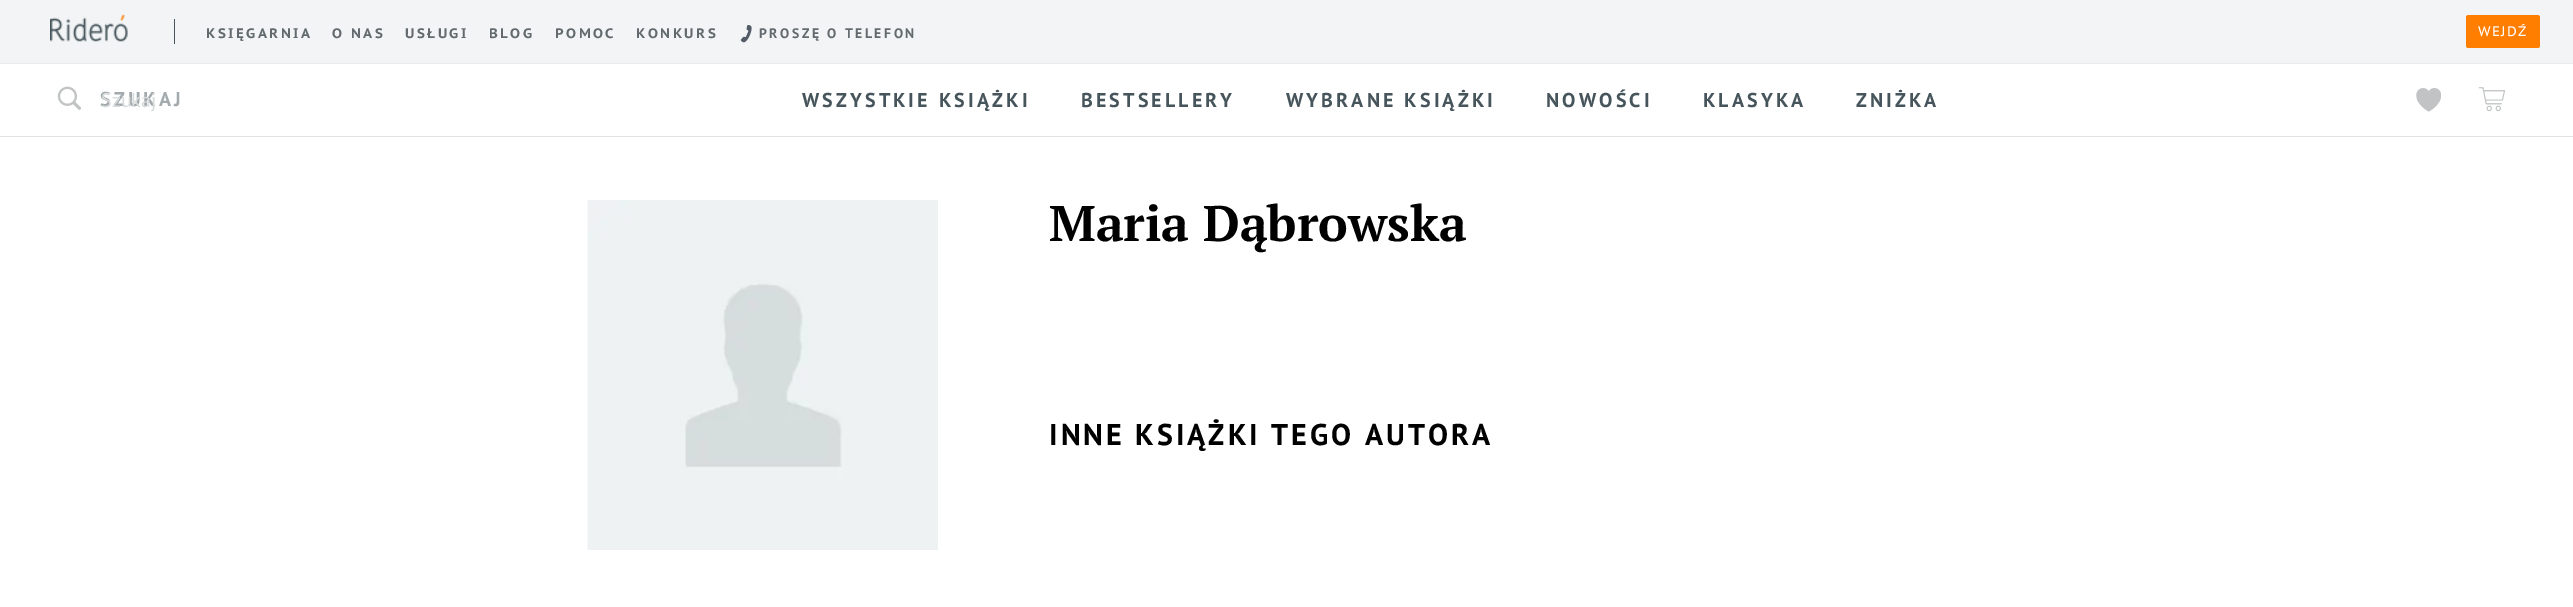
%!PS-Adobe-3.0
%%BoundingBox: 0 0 2573 607
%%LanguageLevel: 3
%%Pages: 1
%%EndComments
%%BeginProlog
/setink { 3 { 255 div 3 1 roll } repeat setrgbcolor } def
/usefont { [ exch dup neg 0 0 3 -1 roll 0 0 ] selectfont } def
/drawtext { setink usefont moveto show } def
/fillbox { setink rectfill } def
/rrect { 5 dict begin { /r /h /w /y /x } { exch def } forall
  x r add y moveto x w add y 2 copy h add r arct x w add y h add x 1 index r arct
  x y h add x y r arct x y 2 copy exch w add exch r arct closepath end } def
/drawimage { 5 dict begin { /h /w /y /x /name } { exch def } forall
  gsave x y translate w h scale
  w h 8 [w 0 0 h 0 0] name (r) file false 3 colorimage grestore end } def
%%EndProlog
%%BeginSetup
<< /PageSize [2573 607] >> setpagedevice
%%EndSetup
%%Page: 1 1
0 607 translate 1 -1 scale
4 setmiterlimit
0 0 2573 607 255 255 255 fillbox
233 236 237 setink
0 62 moveto 0 64 lineto 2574 64 lineto 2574 1 lineto 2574 62 lineto closepath fill
0 0 2573 63 242 244 245 fillbox
(assets/img1.rgb) 50 14 78 28 drawimage
174 19 1 25 70 84 91 fillbox
/PTSansCaption-Bold 13.75 usefont
99 106 109 setink
206 38 moveto 2.5 0 (KSIĘGARNIA) ashow
332 38 moveto 2.5 0 (O NAS) ashow
405 38 moveto 2.5 0 (USŁUGI) ashow
489 38 moveto 2.5 0 (BLOG) ashow
555 38 moveto 2.5 0 (POMOC) ashow
636 38 moveto 2.5 0 (KONKURS) ashow
(assets/img2.rgb) 740 25 12 18 drawimage
/PTSans-Bold 13.75 usefont
759 38 moveto 2.5 0 (PROSZĘ O TELEFON) ashow
255 126 0 setink
2466 15 74 33 2.5 rrect fill
/PTSansCaption-Regular 13.75 usefont
255 255 255 setink
2478 36 moveto 1.25 0 (WEJDŹ) ashow
0 136 2573 1 223 227 229 fillbox
(assets/img3.rgb) 57 86 24 24 drawimage
/PTSans-Bold 20 usefont
163 170 173 setink
100 106 moveto 3.1 0 (SZUKAJ) ashow
(Szukaj) 101 107 /PTSans-Regular 20 217 220 221 drawtext
/PTSans-Bold 20 usefont
70 84 91 setink
802 107 moveto 3.1 0 (WSZYSTKIE KSIĄŻKI) ashow
1081 107 moveto 3.1 0 (BESTSELLERY) ashow
1286 107 moveto 3.1 0 (WYBRANE KSIĄŻKI) ashow
1546 107 moveto 3.1 0 (NOWOŚCI) ashow
1703 107 moveto 3.1 0 (KLASYKA) ashow
1856 107 moveto 3.1 0 (ZNIŻKA) ashow
(assets/img4.rgb) 2416 88 25 24 drawimage
(assets/img5.rgb) 2478 87 27 25 drawimage
588 200 350 350 238 242 243 fillbox
(assets/img6.rgb) 587 200 255 350 drawimage
(Maria Dąbrowska) 1049 241 /PTSerif-Bold 50 0 0 0 drawtext
/PTSans-Bold 30 usefont
1049 445 moveto 3 0 (INNE KSIĄŻKI TEGO AUTORA) ashow
showpage
%%EOF
